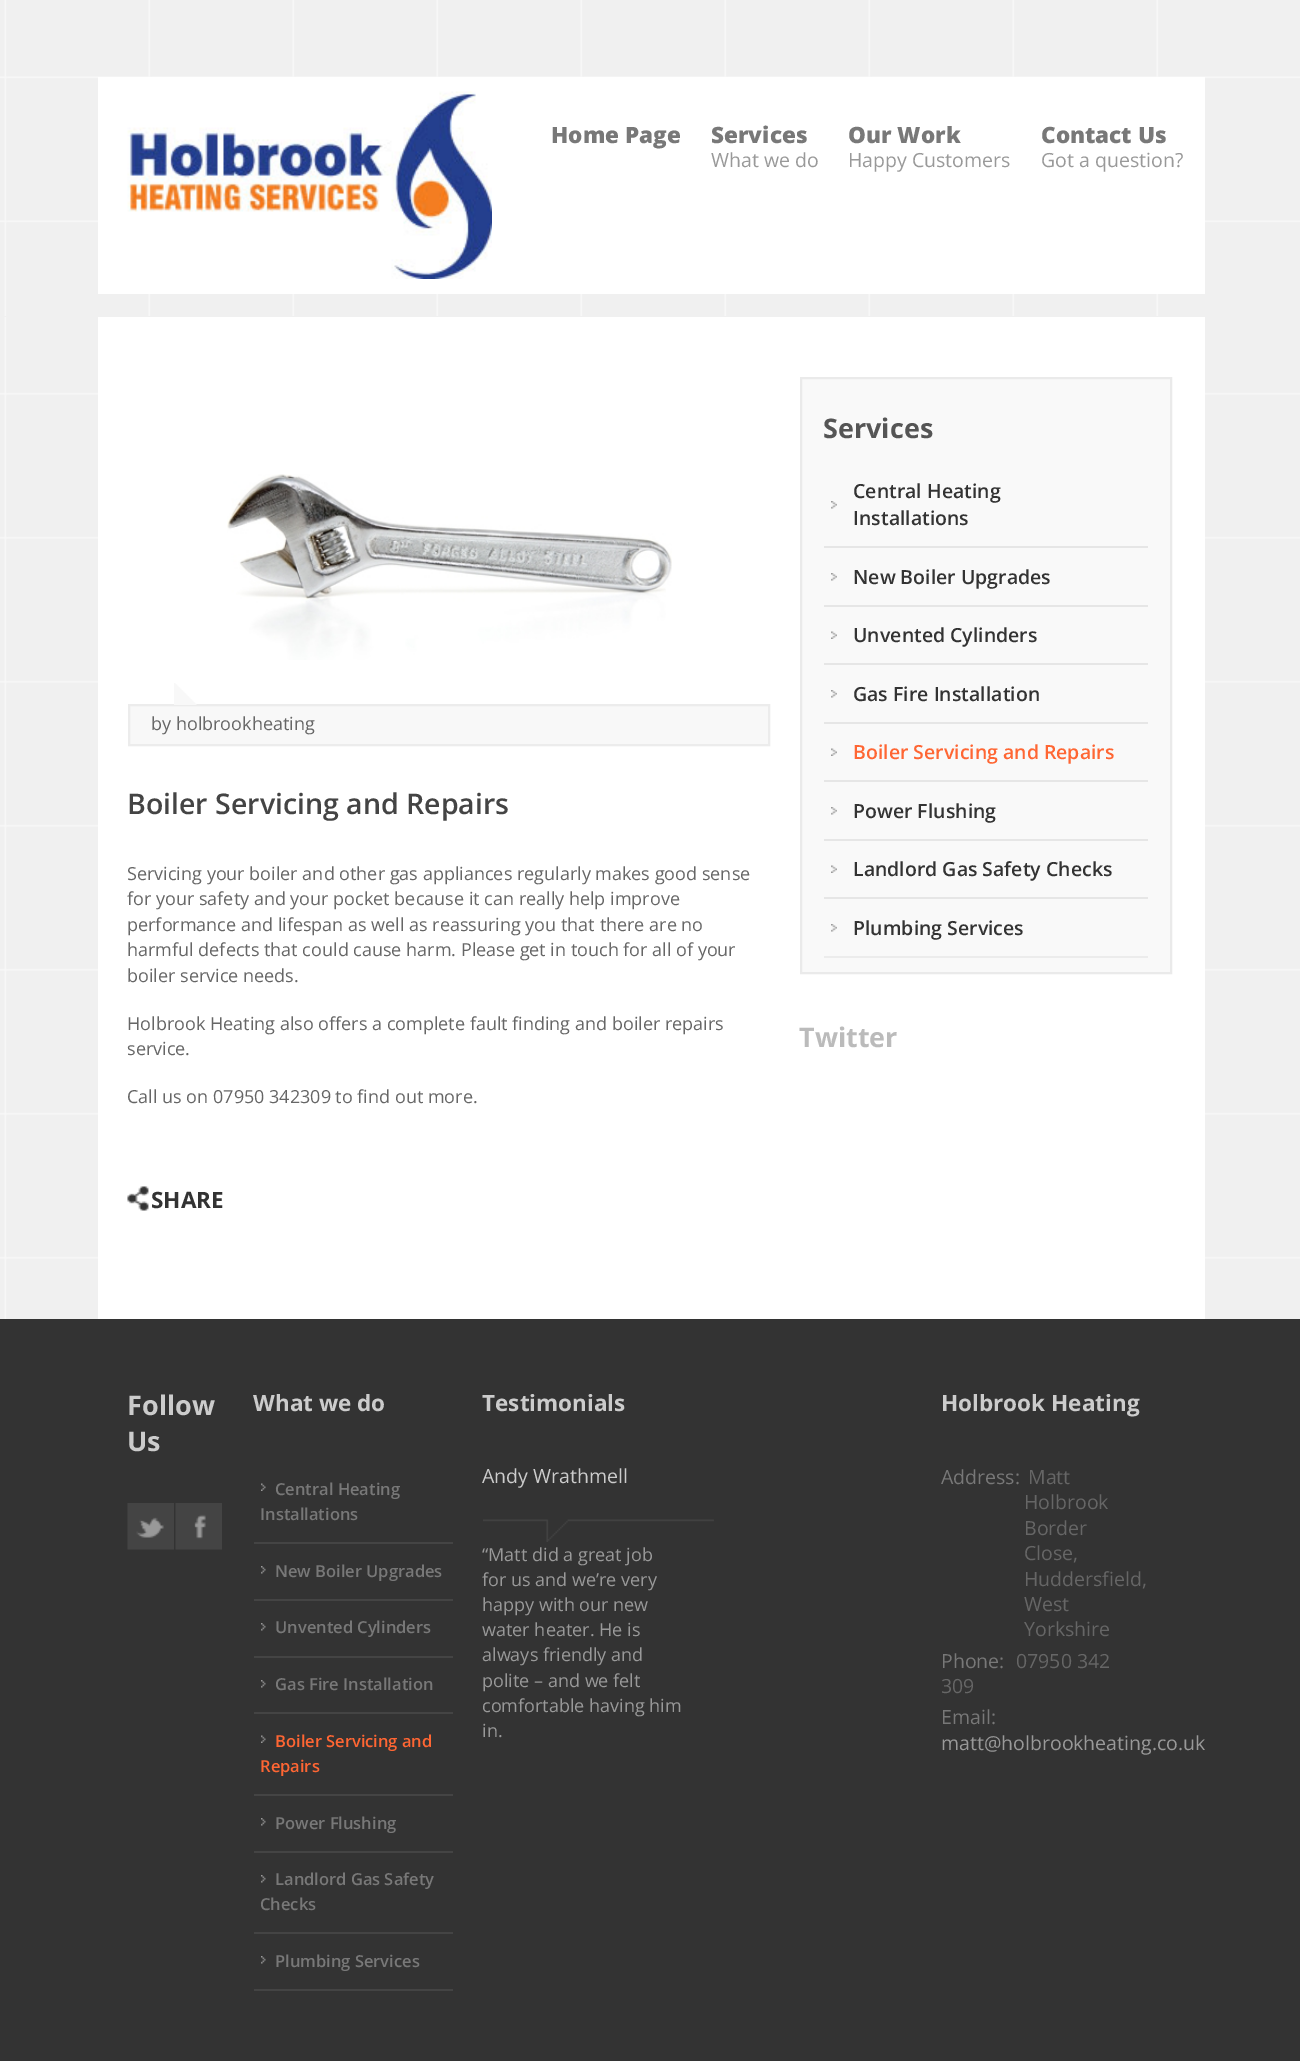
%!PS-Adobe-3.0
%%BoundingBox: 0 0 1300 2061
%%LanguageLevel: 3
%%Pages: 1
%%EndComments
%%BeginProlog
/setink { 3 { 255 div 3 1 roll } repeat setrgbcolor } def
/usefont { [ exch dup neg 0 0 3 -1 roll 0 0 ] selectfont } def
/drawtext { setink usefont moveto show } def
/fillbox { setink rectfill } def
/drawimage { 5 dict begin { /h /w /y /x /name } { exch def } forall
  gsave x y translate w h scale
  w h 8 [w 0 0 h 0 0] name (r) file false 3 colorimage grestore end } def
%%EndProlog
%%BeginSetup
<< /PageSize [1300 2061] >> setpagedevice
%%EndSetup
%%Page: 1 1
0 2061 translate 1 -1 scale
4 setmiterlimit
0 0 1300 2061 240 240 240 fillbox
(assets/img1.rgb) 0 0 1300 316 drawimage
98 77 1107 217 255 255 255 fillbox
(assets/img2.rgb) 127 91 365 188 drawimage
(Home Page) 551 143 /OpenSans-ExtraBold 22.5 120 120 120 drawtext
(Services) 711 143 /OpenSans-ExtraBold 22.5 120 120 120 drawtext
(What we do) 711 167 /OpenSans-Regular 19.5 153 153 153 drawtext
(Our Work) 848 143 /OpenSans-ExtraBold 22.5 120 120 120 drawtext
(Happy Customers) 848 167 /OpenSans-Regular 19.5 153 153 153 drawtext
(Contact Us) 1041 143 /OpenSans-ExtraBold 22.5 120 120 120 drawtext
(Got a question?) 1041 167 /OpenSans-Regular 19.5 153 153 153 drawtext
(assets/img3.rgb) 0 317 1300 1002 drawimage
98 317 1107 1002 255 255 255 fillbox
(assets/img4.rgb) 227 474 445 186 drawimage
248 248 248 setink
129 705 moveto 769 705 lineto 769 745 lineto 129 745 lineto closepath gsave fill grestore
236 236 236 setink
2 setlinewidth
stroke
(assets/img5.rgb) 174 683 23 22 drawimage
(by holbrookheating) 151 730 /OpenSans-Regular 18 102 102 102 drawtext
(Boiler Servicing and Repairs) 127 814 /OpenSans-SemiBold 28.5 68 68 68 drawtext
(Servicing your boiler and other gas appliances regularly makes good sense) 127 880 /OpenSans-Regular 18 102 102 102 drawtext
(for your safety and your pocket because it can really help improve) 127 905 /OpenSans-Regular 18 102 102 102 drawtext
(performance and lifespan as well as reassuring you that there are no) 127 931 /OpenSans-Regular 18 102 102 102 drawtext
(harmful defects that could cause harm. Please get in touch for all of your) 127 956 /OpenSans-Regular 18 102 102 102 drawtext
(boiler service needs.) 127 982 /OpenSans-Regular 18 102 102 102 drawtext
(Holbrook Heating also offers a complete fault finding and boiler repairs) 127 1030 /OpenSans-Regular 18 102 102 102 drawtext
(service.) 127 1055 /OpenSans-Regular 18 102 102 102 drawtext
(Call us on 07950 342309 to find out more.) 127 1103 /OpenSans-Regular 18 102 102 102 drawtext
(assets/img6.rgb) 127 1186 22 25 drawimage
(SHARE) 151 1208 /OpenSans-Bold 22.5 51 51 51 drawtext
249 249 249 setink
801 378 moveto 1171 378 lineto 1171 973 lineto 801 973 lineto closepath gsave fill grestore
234 234 234 setink
stroke
(Services) 823 438 /OpenSans-Bold 27 85 85 85 drawtext
(assets/img7.rgb) 831 501 6 8 drawimage
(Central Heating) 853 498 /OpenSans-SemiBold 19.5 51 51 51 drawtext
(Installations) 853 525 /OpenSans-SemiBold 19.5 51 51 51 drawtext
824 546 324 2 230 230 230 fillbox
(assets/img7.rgb) 831 573 6 8 drawimage
(New Boiler Upgrades) 853 584 /OpenSans-SemiBold 19.5 51 51 51 drawtext
824 605 324 2 230 230 230 fillbox
(assets/img8.rgb) 831 631 6 8 drawimage
(Unvented Cylinders) 853 642 /OpenSans-SemiBold 19.5 51 51 51 drawtext
824 663 324 2 230 230 230 fillbox
(assets/img7.rgb) 831 690 6 8 drawimage
(Gas Fire Installation) 853 701 /OpenSans-SemiBold 19.5 51 51 51 drawtext
824 722 324 2 230 230 230 fillbox
(assets/img8.rgb) 831 748 6 8 drawimage
(Boiler Servicing and Repairs) 853 759 /OpenSans-SemiBold 19.5 255 102 51 drawtext
824 780 324 2 230 230 230 fillbox
(assets/img7.rgb) 831 807 6 8 drawimage
(Power Flushing) 853 818 /OpenSans-SemiBold 19.5 51 51 51 drawtext
824 839 324 2 230 230 230 fillbox
(assets/img8.rgb) 831 865 6 8 drawimage
(Landlord Gas Safety Checks) 853 876 /OpenSans-SemiBold 19.5 51 51 51 drawtext
824 897 324 2 230 230 230 fillbox
824 956 324 2 236 236 236 fillbox
(assets/img7.rgb) 831 924 6 8 drawimage
(Plumbing Services) 853 935 /OpenSans-SemiBold 19.5 51 51 51 drawtext
(Twitter) 799 1047 /OpenSans-Bold 27 187 187 187 drawtext
0 1319 1300 742 51 51 51 fillbox
(Follow) 127 1415 /OpenSans-Bold 27 204 204 204 drawtext
(Us) 127 1451 /OpenSans-Bold 27 204 204 204 drawtext
(assets/img9.rgb) 127 1503 47 47 drawimage
(assets/img10.rgb) 175 1503 47 47 drawimage
(What we do) 253 1411 /OpenSans-Bold 22.5 204 204 204 drawtext
254 1542 199 2 68 68 68 fillbox
(assets/img11.rgb) 261 1483 5 8 drawimage
(Central Heating) 275 1495 /OpenSans-SemiBold 16.5 120 120 120 drawtext
(Installations) 260 1520 /OpenSans-SemiBold 16.5 120 120 120 drawtext
254 1599 199 2 68 68 68 fillbox
(assets/img12.rgb) 261 1566 5 8 drawimage
(New Boiler Upgrades) 275 1577 /OpenSans-SemiBold 16.5 120 120 120 drawtext
254 1656 199 2 68 68 68 fillbox
(assets/img12.rgb) 261 1623 5 8 drawimage
(Unvented Cylinders) 275 1633 /OpenSans-SemiBold 16.5 120 120 120 drawtext
254 1712 199 2 68 68 68 fillbox
(assets/img12.rgb) 261 1680 5 8 drawimage
(Gas Fire Installation) 275 1690 /OpenSans-SemiBold 16.5 120 120 120 drawtext
254 1794 199 2 68 68 68 fillbox
(assets/img11.rgb) 261 1735 5 8 drawimage
(Boiler Servicing and) 275 1747 /OpenSans-SemiBold 16.5 255 102 51 drawtext
(Repairs) 260 1772 /OpenSans-SemiBold 16.5 255 102 51 drawtext
254 1851 199 2 68 68 68 fillbox
(assets/img12.rgb) 261 1818 5 8 drawimage
(Power Flushing) 275 1829 /OpenSans-SemiBold 16.5 120 120 120 drawtext
254 1932 199 2 68 68 68 fillbox
(assets/img12.rgb) 261 1875 5 8 drawimage
(Landlord Gas Safety) 275 1885 /OpenSans-SemiBold 16.5 120 120 120 drawtext
(Checks) 260 1910 /OpenSans-SemiBold 16.5 120 120 120 drawtext
254 1989 199 2 68 68 68 fillbox
(assets/img12.rgb) 261 1956 5 8 drawimage
(Plumbing Services) 275 1967 /OpenSans-SemiBold 16.5 120 120 120 drawtext
(Testimonials) 482 1411 /OpenSans-Bold 22.5 204 204 204 drawtext
(Andy Wrathmell) 482 1483 /OpenSans-Regular 19.5 204 204 204 drawtext
(assets/img13.rgb) 483 1519 231 23 drawimage
(“Matt did a great job) 482 1561 /OpenSans-Regular 18 153 153 153 drawtext
(for us and we’re very) 482 1586 /OpenSans-Regular 18 153 153 153 drawtext
(happy with our new) 482 1611 /OpenSans-Regular 18 153 153 153 drawtext
(water heater. He is) 482 1636 /OpenSans-Regular 18 153 153 153 drawtext
(always friendly and) 482 1661 /OpenSans-Regular 18 153 153 153 drawtext
(polite – and we felt) 482 1687 /OpenSans-Regular 18 153 153 153 drawtext
(comfortable having him) 482 1712 /OpenSans-Regular 18 153 153 153 drawtext
(in.) 482 1737 /OpenSans-Regular 18 153 153 153 drawtext
(Holbrook Heating) 941 1411 /OpenSans-Bold 22.5 204 204 204 drawtext
(Address:) 941 1484 /OpenSans-Regular 19.5 120 120 120 drawtext
(Matt) 1028 1484 /OpenSans-Regular 19.5 102 102 102 drawtext
(Holbrook) 1024 1509 /OpenSans-Regular 19.5 102 102 102 drawtext
(Border) 1024 1535 /OpenSans-Regular 19.5 102 102 102 drawtext
(Close,) 1024 1560 /OpenSans-Regular 19.5 102 102 102 drawtext
(Huddersfield,) 1024 1586 /OpenSans-Regular 19.5 102 102 102 drawtext
(West) 1024 1611 /OpenSans-Regular 19.5 102 102 102 drawtext
(Yorkshire) 1024 1636 /OpenSans-Regular 19.5 102 102 102 drawtext
(Phone:) 941 1668 /OpenSans-Regular 19.5 120 120 120 drawtext
(07950 342) 1016 1668 /OpenSans-Regular 19.5 102 102 102 drawtext
(309) 941 1693 /OpenSans-Regular 19.5 102 102 102 drawtext
(Email:) 941 1724 /OpenSans-Regular 19.5 120 120 120 drawtext
(matt@holbrookheating.co.uk) 941 1750 /OpenSans-Regular 19.5 153 153 153 drawtext
showpage
%%EOF
